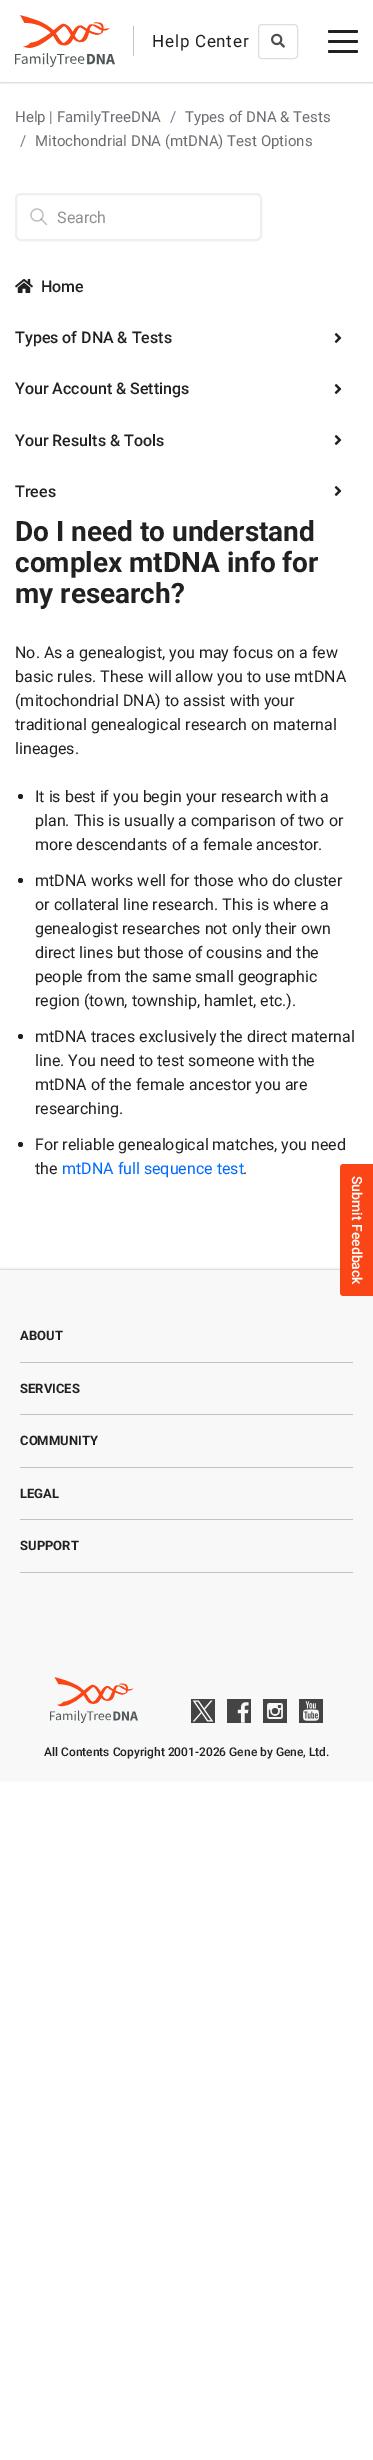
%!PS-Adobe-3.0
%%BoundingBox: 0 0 373 2460
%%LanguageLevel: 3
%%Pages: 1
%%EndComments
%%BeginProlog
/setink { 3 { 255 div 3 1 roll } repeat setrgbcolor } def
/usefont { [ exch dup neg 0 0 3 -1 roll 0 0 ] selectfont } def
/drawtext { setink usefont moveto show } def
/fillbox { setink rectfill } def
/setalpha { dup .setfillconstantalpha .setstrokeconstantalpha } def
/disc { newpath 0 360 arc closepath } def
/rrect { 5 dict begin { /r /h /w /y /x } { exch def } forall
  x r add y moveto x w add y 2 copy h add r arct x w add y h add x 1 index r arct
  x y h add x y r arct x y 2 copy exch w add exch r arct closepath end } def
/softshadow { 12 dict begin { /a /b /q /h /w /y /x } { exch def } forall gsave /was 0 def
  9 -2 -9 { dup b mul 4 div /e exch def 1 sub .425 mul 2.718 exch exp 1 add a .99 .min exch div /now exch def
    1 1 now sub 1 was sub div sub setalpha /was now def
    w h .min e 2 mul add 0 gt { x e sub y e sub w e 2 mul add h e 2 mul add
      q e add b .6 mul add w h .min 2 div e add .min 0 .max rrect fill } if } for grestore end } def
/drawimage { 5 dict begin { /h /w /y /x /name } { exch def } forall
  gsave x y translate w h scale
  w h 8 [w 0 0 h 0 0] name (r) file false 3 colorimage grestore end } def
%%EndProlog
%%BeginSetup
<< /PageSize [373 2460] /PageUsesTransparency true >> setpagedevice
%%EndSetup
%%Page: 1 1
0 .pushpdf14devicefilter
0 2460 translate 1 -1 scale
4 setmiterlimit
0 0 373 2460 255 255 255 fillbox
gsave
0 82 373 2 rectclip
33 33 33 setink
0 1 373 82 0 1 0.21 softshadow
grestore
(assets/img1.rgb) 15 15 100 52 drawimage
133 26 1 30 196 196 196 fillbox
/Roboto-Regular 17 usefont
33 33 33 setink
152 47 moveto 0.75 0 (Help Center) ashow
222 222 222 setink
258.5 24.5 39 34 3.5 rrect stroke
(assets/img2.rgb) 271 33 14 15 drawimage
33 33 33 setink
328 40 30 3 1.5 rrect fill
328 30 30 3 1.5 rrect fill
328 50 30 3 1.5 rrect fill
(Help | FamilyTreeDNA) 15 122 /Roboto-Regular 15 107 110 115 drawtext
(/) 170 122 /Roboto-Regular 15 110 125 141 drawtext
(Types of DNA & Tests) 185 122 /Roboto-Regular 15 107 110 115 drawtext
(/) 20 146 /Roboto-Regular 15 110 125 141 drawtext
(Mitochondrial DNA \(mtDNA\) Test Options) 35 146 /Roboto-Regular 15 107 110 115 drawtext
238 238 243 setink
2 setlinewidth
16 194 245 46 5 rrect stroke
(assets/img3.rgb) 30 208 18 18 drawimage
(Search) 57 223 /Roboto-Regular 16 144 144 144 drawtext
(assets/img4.rgb) 15 279 18 14 drawimage
(Home) 41 292 /Roboto-Medium 16 33 33 33 drawtext
(Types of DNA & Tests) 15 343 /Roboto-Medium 16 33 33 33 drawtext
(assets/img5.rgb) 334 333 8 10 drawimage
(Your Account & Settings) 15 394 /Roboto-Medium 16 33 33 33 drawtext
(assets/img5.rgb) 334 384 8 10 drawimage
(Your Results & Tools) 15 446 /Roboto-Medium 16 33 33 33 drawtext
(assets/img5.rgb) 334 435 8 10 drawimage
(Trees) 15 497 /Roboto-Medium 16 33 33 33 drawtext
(assets/img5.rgb) 334 486 8 10 drawimage
(Do I need to understand) 15 541 /Roboto-Bold 28 33 33 33 drawtext
(complex mtDNA info for) 15 572 /Roboto-Bold 28 33 33 33 drawtext
(my research?) 15 603 /Roboto-Bold 28 33 33 33 drawtext
(No. As a genealogist, you may focus on a few) 15 658 /Roboto-Regular 16 33 33 33 drawtext
(basic rules. These will allow you to use mtDNA) 15 682 /Roboto-Regular 16 33 33 33 drawtext
(\(mitochondrial DNA\) to assist with your) 15 706 /Roboto-Regular 16 33 33 33 drawtext
(traditional genealogical research on maternal) 15 730 /Roboto-Regular 16 33 33 33 drawtext
(lineages.) 15 754 /Roboto-Regular 16 33 33 33 drawtext
20.5 796.5 2.5 disc fill
(It is best if you begin your research with a) 35 802 /Roboto-Regular 16 33 33 33 drawtext
(plan. This is usually a comparison of two or) 35 826 /Roboto-Regular 16 33 33 33 drawtext
(more descendants of a female ancestor.) 35 850 /Roboto-Regular 16 33 33 33 drawtext
20.5 880.5 2.5 disc fill
(mtDNA works well for those who do cluster) 35 886 /Roboto-Regular 16 33 33 33 drawtext
(or collateral line research. This is where a) 35 910 /Roboto-Regular 16 33 33 33 drawtext
(genealogist researches not only their own) 35 934 /Roboto-Regular 16 33 33 33 drawtext
(direct lines but those of cousins and the) 35 958 /Roboto-Regular 16 33 33 33 drawtext
(people from the same small geographic) 35 982 /Roboto-Regular 16 33 33 33 drawtext
(region \(town, township, hamlet, etc.\).) 35 1006 /Roboto-Regular 16 33 33 33 drawtext
20.5 1036.5 2.5 disc fill
(mtDNA traces exclusively the direct maternal) 35 1042 /Roboto-Regular 16 33 33 33 drawtext
(line. You need to test someone with the) 35 1066 /Roboto-Regular 16 33 33 33 drawtext
(mtDNA of the female ancestor you are) 35 1090 /Roboto-Regular 16 33 33 33 drawtext
(researching.) 35 1114 /Roboto-Regular 16 33 33 33 drawtext
20.5 1144.5 2.5 disc fill
(For reliable genealogical matches, you need) 35 1150 /Roboto-Regular 16 33 33 33 drawtext
(the) 35 1174 /Roboto-Regular 16 33 33 33 drawtext
(mtDNA full sequence test) 62 1174 /Roboto-Regular 16 0 106 255 drawtext
(.) 243 1174 /Roboto-Regular 16 33 33 33 drawtext
0 1269 373 511 0 1 0.21 softshadow
0 1270 373 511 248 248 248 fillbox
250 70 22 setink
373 1164 moveto 373 1296 lineto 344 1296 lineto 342 1296 340 1295 340 1292 curveto 340 1168 lineto 340 1165 342 1164 344 1164 curveto closepath fill
/Roboto-Medium 14 usefont
255 255 255 setink
gsave 352 1176 translate 90 rotate 0 0 moveto (Submit Feedback) show grestore
20 1362 333 1 194 194 194 fillbox
(ABOUT) 20 1340 /Roboto-Bold 13 33 33 33 drawtext
20 1414 333 1 194 194 194 fillbox
(SERVICES) 20 1393 /Roboto-Bold 13 33 33 33 drawtext
20 1467 333 1 194 194 194 fillbox
(COMMUNITY) 20 1445 /Roboto-Bold 13 33 33 33 drawtext
20 1519 333 1 194 194 194 fillbox
(LEGAL) 20 1498 /Roboto-Bold 13 33 33 33 drawtext
20 1572 333 1 194 194 194 fillbox
(SUPPORT) 20 1550 /Roboto-Bold 13 33 33 33 drawtext
(assets/img6.rgb) 50 1677 88 46 drawimage
(assets/img7.rgb) 191 1699 24 24 drawimage
(assets/img8.rgb) 227 1699 24 24 drawimage
(assets/img9.rgb) 263 1699 24 24 drawimage
(assets/img10.rgb) 299 1699 24 24 drawimage
(All Contents Copyright 2001-2026 Gene by Gene, Ltd.) 44 1756 /Roboto-Medium 12 33 33 33 drawtext
.poppdf14devicefilter showpage
%%EOF
